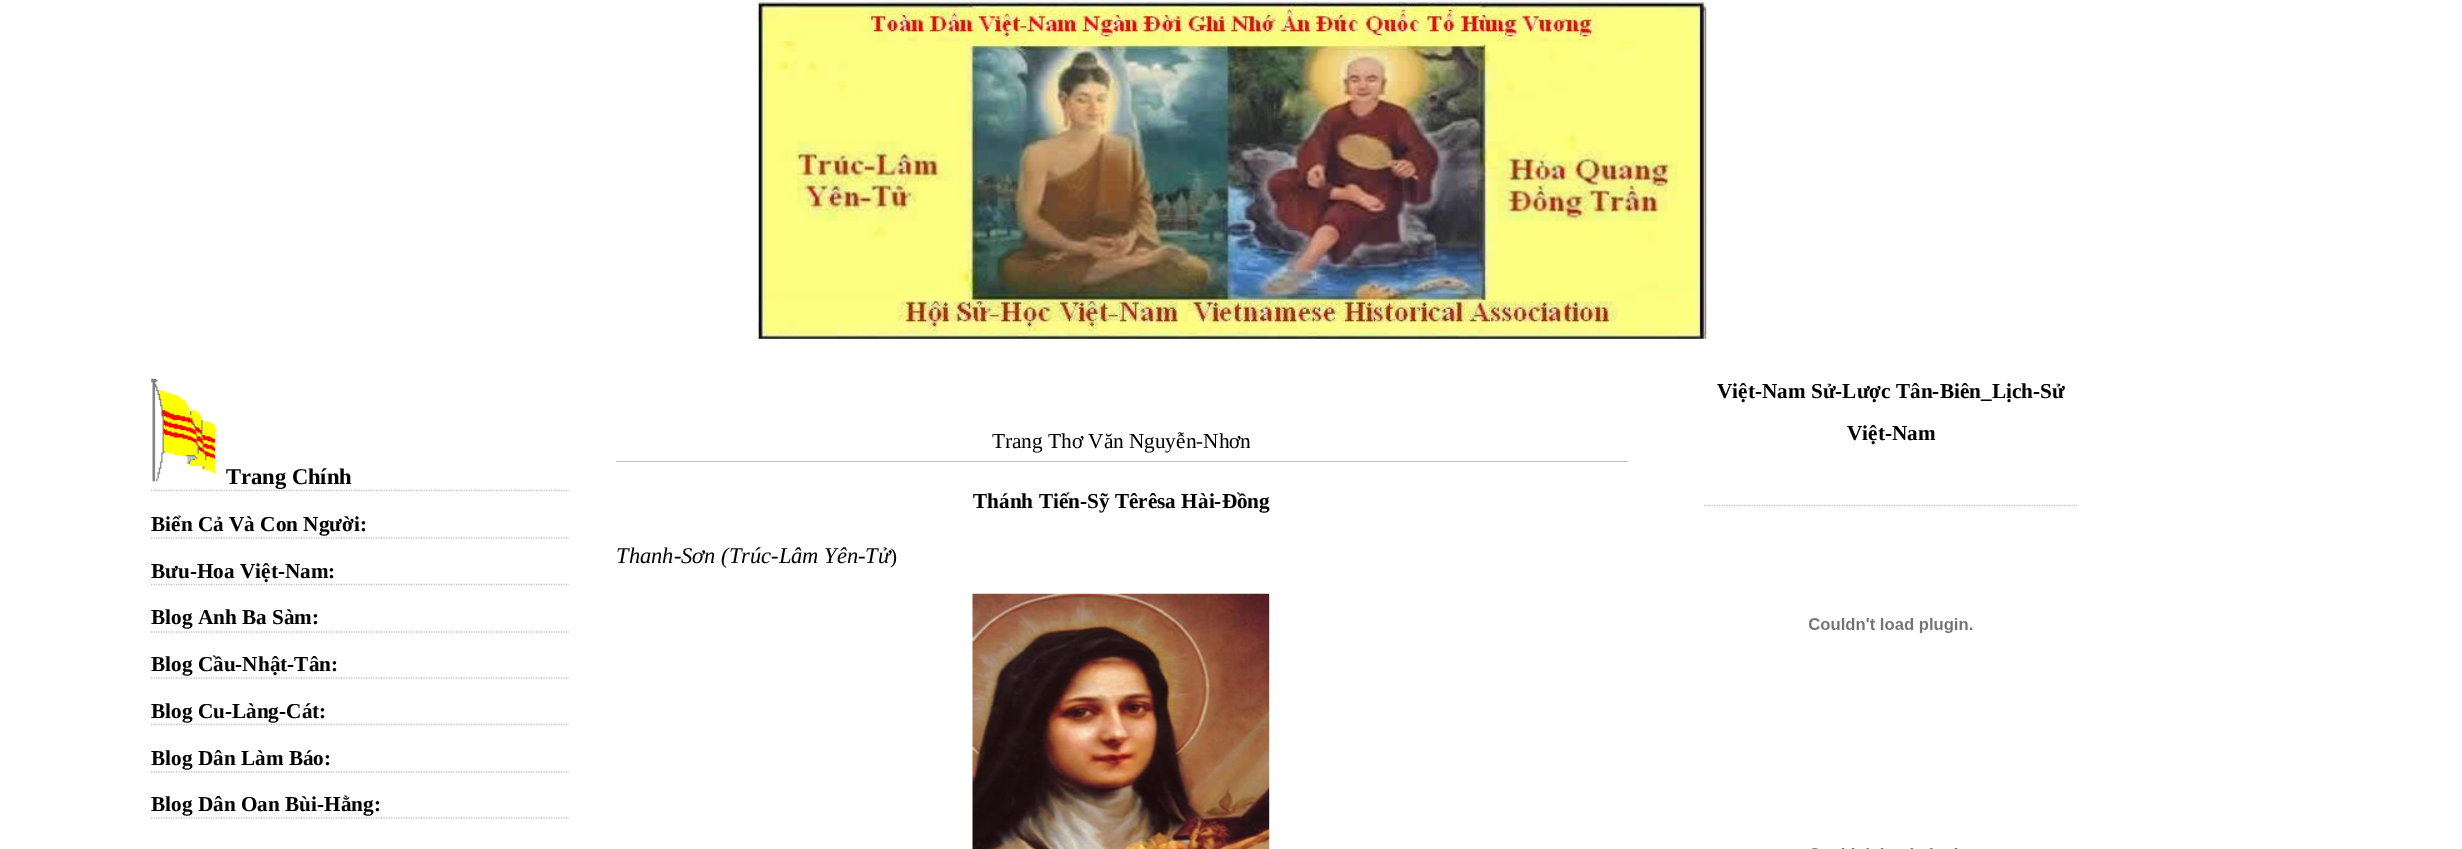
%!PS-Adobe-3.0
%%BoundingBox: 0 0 2462 849
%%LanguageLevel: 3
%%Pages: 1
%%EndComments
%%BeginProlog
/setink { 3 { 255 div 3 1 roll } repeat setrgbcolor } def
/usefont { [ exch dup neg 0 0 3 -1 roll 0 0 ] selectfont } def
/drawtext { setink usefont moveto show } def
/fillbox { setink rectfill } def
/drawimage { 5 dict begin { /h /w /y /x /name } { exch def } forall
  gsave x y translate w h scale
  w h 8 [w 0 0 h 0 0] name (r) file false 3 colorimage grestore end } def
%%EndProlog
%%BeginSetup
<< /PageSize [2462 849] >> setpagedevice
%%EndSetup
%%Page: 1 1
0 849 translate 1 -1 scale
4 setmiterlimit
0 0 2462 849 255 255 255 fillbox
(assets/img1.rgb) 757 1 950 338 drawimage
(Việt-Nam Sử-Lược Tân-Biên_Lịch-Sử) 1717 398 /LiberationSerif-Bold 21.25 0 0 0 drawtext
(Việt-Nam) 1847 440 /LiberationSerif-Bold 21.25 0 0 0 drawtext
196 196 196 setink
1.2 setlinewidth
[1.25 1.25] 0 setdash
1704 505.5 moveto 2077.5 505.5 lineto stroke
(assets/img2.rgb) 1809 618 164 15 drawimage
(assets/img3.rgb) 1811 848 147 1 drawimage
151 490.5 moveto 569 490.5 lineto stroke
(assets/img4.rgb) 151 378 66 104 drawimage
(Trang Chính) 226 484 /LiberationSerif-Bold 22.5 0 0 0 drawtext
196 196 196 setink
151 538 moveto 569 538 lineto stroke
(Biển Cả Và Con Người:) 151 531 /LiberationSerif-Bold 21.25 0 0 0 drawtext
196 196 196 setink
151 584.5 moveto 569 584.5 lineto stroke
(Bưu-Hoa Việt-Nam:) 151 578 /LiberationSerif-Bold 21.25 0 0 0 drawtext
196 196 196 setink
151 632 moveto 569 632 lineto stroke
(Blog Anh Ba Sàm:) 151 624 /LiberationSerif-Bold 21.25 0 0 0 drawtext
196 196 196 setink
151 678 moveto 569 678 lineto stroke
(Blog Cầu-Nhật-Tân:) 151 671 /LiberationSerif-Bold 21.25 0 0 0 drawtext
196 196 196 setink
151 724.5 moveto 569 724.5 lineto stroke
(Blog Cu-Làng-Cát:) 151 718 /LiberationSerif-Bold 21.25 0 0 0 drawtext
196 196 196 setink
151 772 moveto 569 772 lineto stroke
(Blog Dân Làm Báo:) 151 765 /LiberationSerif-Bold 21.25 0 0 0 drawtext
196 196 196 setink
151 818 moveto 569 818 lineto stroke
(Blog Dân Oan Bùi-Hằng:) 151 811 /LiberationSerif-Bold 21.25 0 0 0 drawtext
616 461 1012 1 196 196 196 fillbox
(Trang Thơ Văn Nguyễn-Nhơn) 992 448 /LiberationSerif-Regular 21.25 0 0 0 drawtext
(Thánh Tiến-Sỹ Têrêsa Hài-Đồng) 973 508 /LiberationSerif-Bold 21.25 0 0 0 drawtext
(Thanh-Sơn \(Trúc-Lâm Yên-Tử) 616 563 /LiberationSerif-Italic 22.5 0 0 0 drawtext
(\)) 890 563 /LiberationSerif-Regular 21.25 0 0 0 drawtext
(assets/img5.rgb) 972 593 298 256 drawimage
showpage
%%EOF
